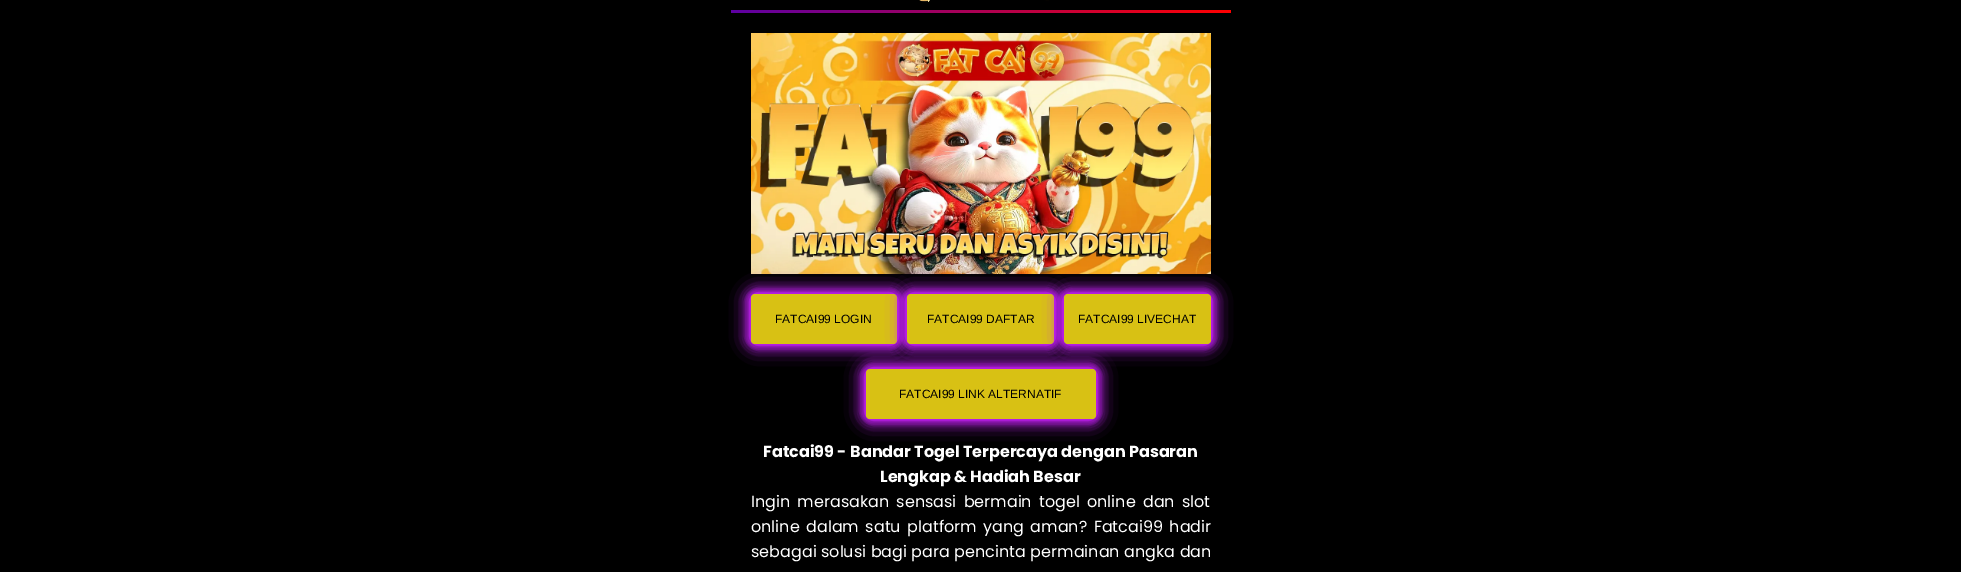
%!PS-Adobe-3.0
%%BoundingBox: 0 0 1961 572
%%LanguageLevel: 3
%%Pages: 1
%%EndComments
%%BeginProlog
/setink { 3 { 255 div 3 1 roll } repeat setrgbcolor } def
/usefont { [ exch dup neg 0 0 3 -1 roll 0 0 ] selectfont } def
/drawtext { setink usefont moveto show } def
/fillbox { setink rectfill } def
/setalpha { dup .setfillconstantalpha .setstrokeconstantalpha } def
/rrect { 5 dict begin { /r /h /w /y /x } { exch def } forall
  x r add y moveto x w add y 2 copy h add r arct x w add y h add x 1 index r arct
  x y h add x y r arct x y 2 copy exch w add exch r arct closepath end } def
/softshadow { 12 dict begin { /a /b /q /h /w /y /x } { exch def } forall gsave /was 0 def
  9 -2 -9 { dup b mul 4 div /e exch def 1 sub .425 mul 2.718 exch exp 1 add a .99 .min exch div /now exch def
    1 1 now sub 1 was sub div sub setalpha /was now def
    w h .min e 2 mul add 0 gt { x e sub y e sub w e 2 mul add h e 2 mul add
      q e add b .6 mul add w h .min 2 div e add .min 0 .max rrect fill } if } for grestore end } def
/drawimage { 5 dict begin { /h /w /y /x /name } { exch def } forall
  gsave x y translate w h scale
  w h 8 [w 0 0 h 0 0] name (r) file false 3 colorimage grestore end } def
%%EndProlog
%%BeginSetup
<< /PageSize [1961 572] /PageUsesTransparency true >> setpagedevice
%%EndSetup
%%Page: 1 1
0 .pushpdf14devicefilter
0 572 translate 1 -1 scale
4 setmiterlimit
0 0 1961 572 0 0 0 fillbox
(assets/img1.rgb) 919 0 130 2 drawimage
(assets/img2.rgb) 731 10 500 3 drawimage
(assets/img3.rgb) 751 33 460 241 drawimage
193 31 243 setink
751 294 146 50 4 10 1 softshadow
751 294 146 50 4 7.5 1 softshadow
751 294 146 50 4 5 1 softshadow
751 294 146 50 4 2.5 1 softshadow
216 193 20 setink
751 294 146 50 4 rrect fill
(FATCAI99 LOGIN) 775 323 /LiberationSans-Regular 12 0 0 0 drawtext
193 31 243 setink
907 294 147 50 4 10 1 softshadow
907 294 147 50 4 7.5 1 softshadow
907 294 147 50 4 5 1 softshadow
907 294 147 50 4 2.5 1 softshadow
216 193 20 setink
907 294 147 50 4 rrect fill
(FATCAI99 DAFTAR) 927 323 /LiberationSans-Regular 12 0 0 0 drawtext
193 31 243 setink
1064 294 147 50 4 10 1 softshadow
1064 294 147 50 4 7.5 1 softshadow
1064 294 147 50 4 5 1 softshadow
1064 294 147 50 4 2.5 1 softshadow
216 193 20 setink
1064 294 147 50 4 rrect fill
(FATCAI99 LIVECHAT) 1078 323 /LiberationSans-Regular 12 0 0 0 drawtext
193 31 243 setink
866 369 230 50 4 10 1 softshadow
866 369 230 50 4 7.5 1 softshadow
866 369 230 50 4 5 1 softshadow
866 369 230 50 4 2.5 1 softshadow
216 193 20 setink
866 369 230 50 4 rrect fill
(FATCAI99 LINK ALTERNATIF) 899 398 /LiberationSans-Regular 12 0 0 0 drawtext
(Fatcai99 - Bandar Togel Terpercaya dengan Pasaran) 763 457 /Poppins-Bold 16 255 255 255 drawtext
(Lengkap & Hadiah Besar) 880 482 /Poppins-Bold 16 255 255 255 drawtext
/Poppins-Regular 16 usefont
751 507 moveto 3 0 32 (Ingin merasakan sensasi bermain togel online dan slot) widthshow
751 532 moveto 2.25 0 32 (online dalam satu platform yang aman? Fatcai99 hadir) widthshow
751 557 moveto 0.25 0 32 (sebagai solusi bagi para pencinta permainan angka dan) widthshow
.poppdf14devicefilter showpage
%%EOF
